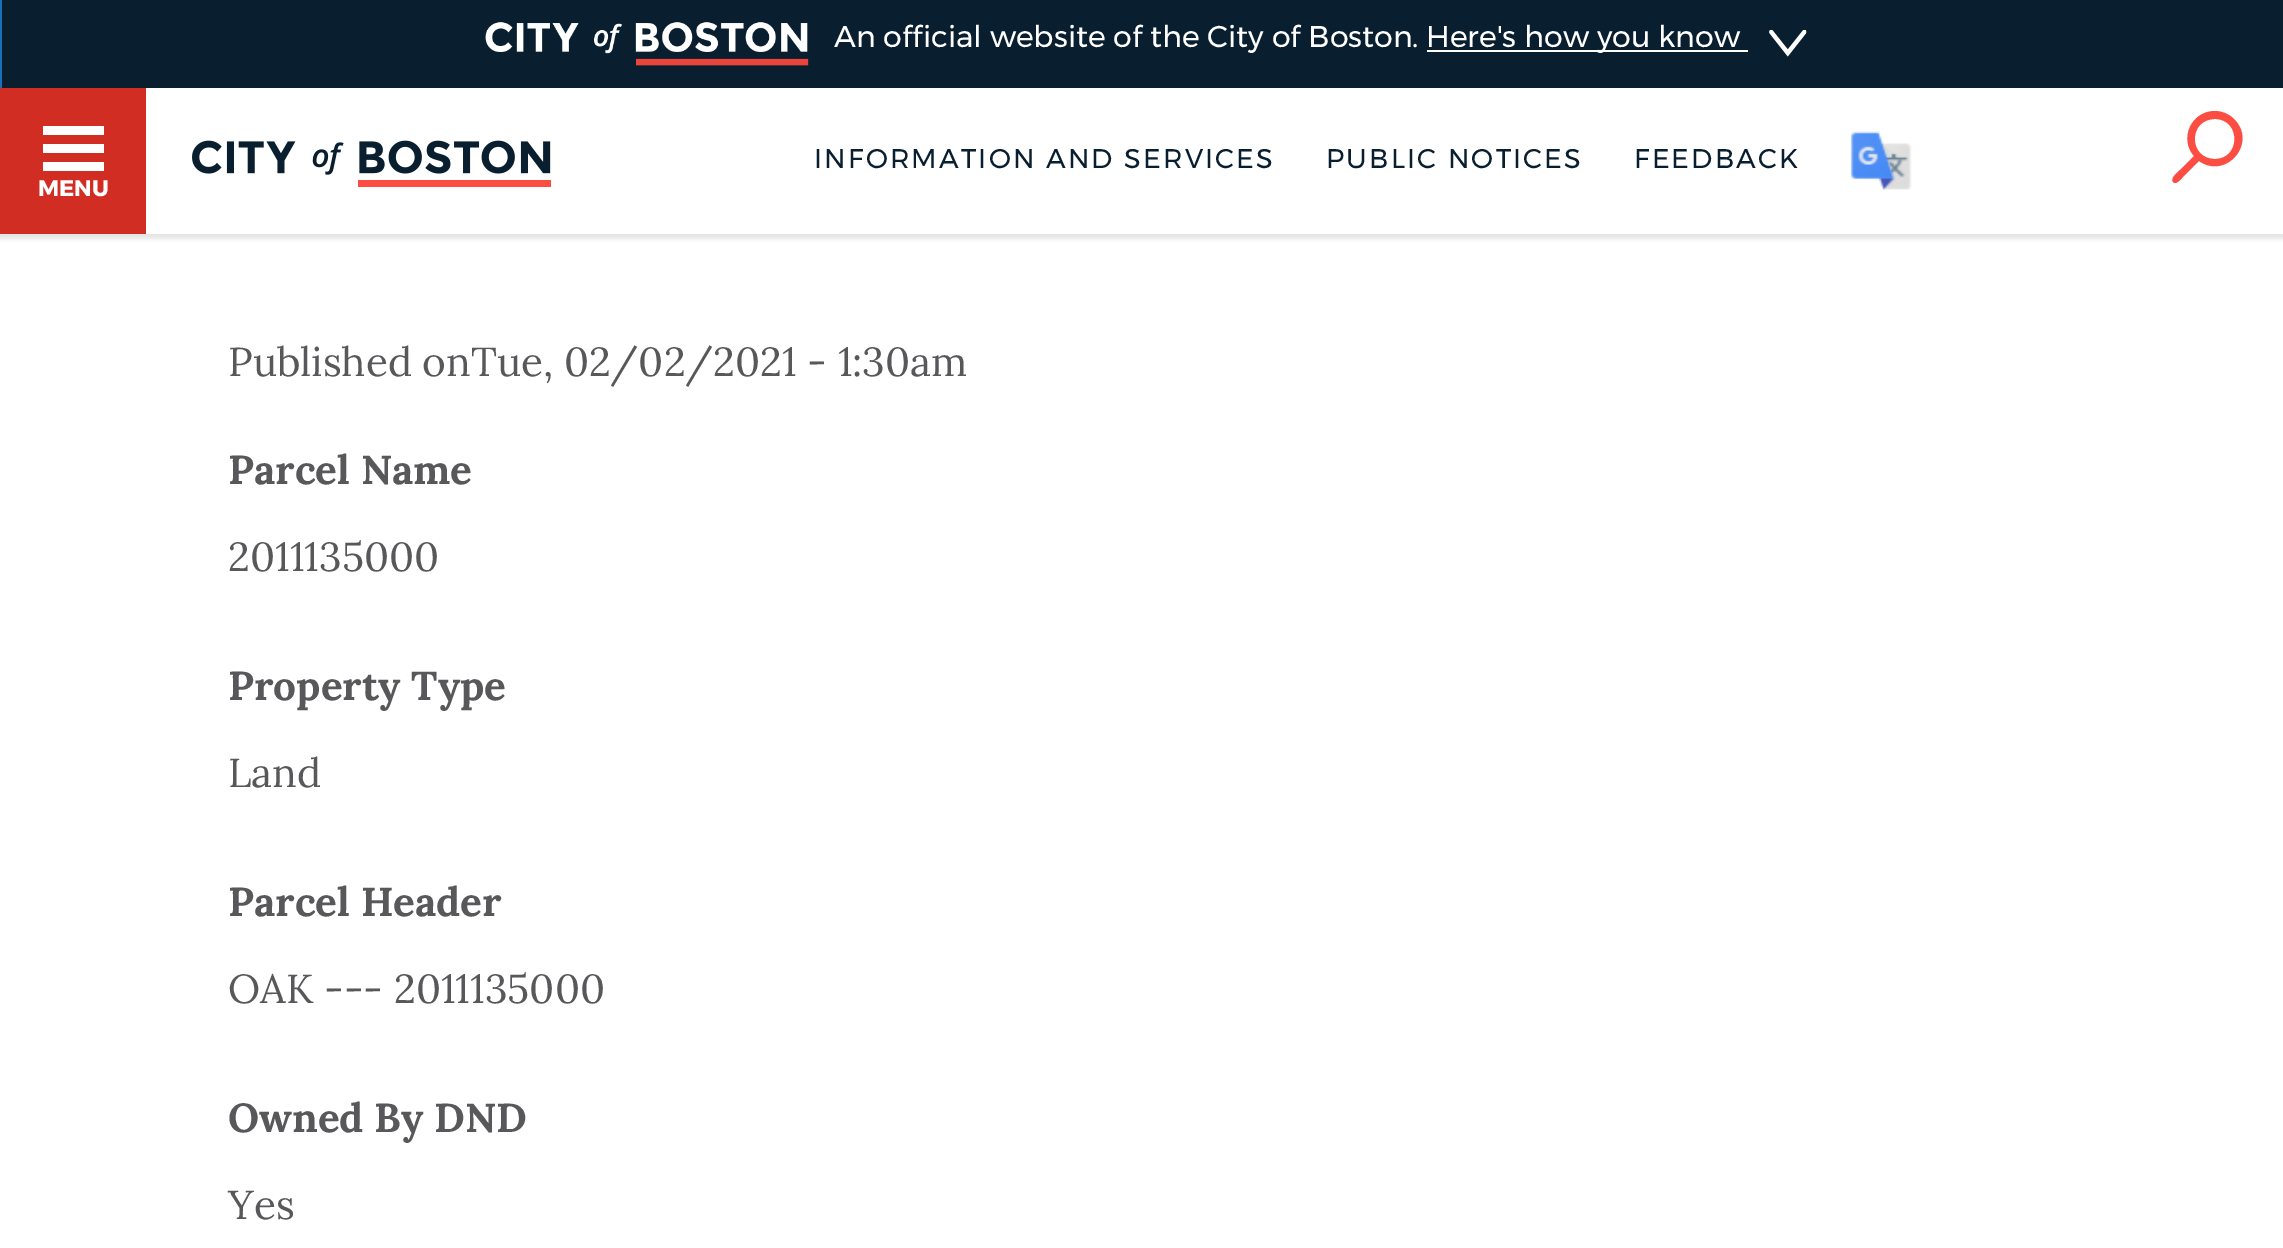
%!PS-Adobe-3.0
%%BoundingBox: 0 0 2283 1248
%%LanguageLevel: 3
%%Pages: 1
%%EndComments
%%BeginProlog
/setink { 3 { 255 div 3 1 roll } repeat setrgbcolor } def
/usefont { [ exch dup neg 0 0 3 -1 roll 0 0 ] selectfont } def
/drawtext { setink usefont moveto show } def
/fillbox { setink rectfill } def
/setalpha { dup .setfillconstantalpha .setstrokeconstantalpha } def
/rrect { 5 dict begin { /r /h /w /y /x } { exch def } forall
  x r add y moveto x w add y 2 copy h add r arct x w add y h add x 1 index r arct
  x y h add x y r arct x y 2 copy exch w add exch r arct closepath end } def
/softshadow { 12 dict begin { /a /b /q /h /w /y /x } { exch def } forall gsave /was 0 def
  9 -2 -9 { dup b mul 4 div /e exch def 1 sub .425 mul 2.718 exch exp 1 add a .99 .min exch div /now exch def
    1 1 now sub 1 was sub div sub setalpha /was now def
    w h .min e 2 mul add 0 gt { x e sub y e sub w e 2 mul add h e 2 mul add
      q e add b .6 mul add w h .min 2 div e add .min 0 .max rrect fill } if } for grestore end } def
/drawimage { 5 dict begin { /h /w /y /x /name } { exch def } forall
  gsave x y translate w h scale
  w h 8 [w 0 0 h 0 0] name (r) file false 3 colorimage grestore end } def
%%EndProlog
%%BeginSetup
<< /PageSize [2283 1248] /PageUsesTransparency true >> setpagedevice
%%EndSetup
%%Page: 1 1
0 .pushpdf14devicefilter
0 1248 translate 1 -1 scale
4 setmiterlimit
0 0 2283 1248 255 255 255 fillbox
0 0 2 88 24 113 189 fillbox
2 0 2281 88 9 31 47 fillbox
(assets/img1.rgb) 485 22 324 44 drawimage
(An official website of the City of Boston.) 834 47 /Montserrat-Regular 30 255 255 255 drawtext
1427 50 312 2 255 255 255 fillbox
(Here's how you know) 1426 47 /Montserrat-Regular 30 255 255 255 drawtext
1739 50 9 2 255 255 255 fillbox
(assets/img2.rgb) 1769 29 38 28 drawimage
gsave
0 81 moveto 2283 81 lineto 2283 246 lineto 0 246 lineto closepath 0 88 moveto 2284 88 lineto 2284 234 lineto 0 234 lineto closepath eoclip newpath
0 0 0 setink
-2 88 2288 151 0 2 0.1 softshadow
grestore
(assets/img3.rgb) 192 140 359 47 drawimage
/Montserrat-Regular 27 usefont
9 31 47 setink
814 168 moveto 2.25 0 (INFORMATION AND SERVICES) ashow
1326 168 moveto 2.25 0 (PUBLIC NOTICES) ashow
1634 168 moveto 2.25 0 (FEEDBACK) ashow
(assets/img4.rgb) 1850 131 62 59 drawimage
251 77 66 setink
2215 111 moveto 2191 111 2179 139 2194 156 curveto 2180 170 lineto 2178 172 2170 178 2173 182 curveto 2176 185 2180 180 2182 178 curveto 2199 161 lineto 2226 180 2258 143 2234 119 curveto 2229 114 2222 111 2215 111 curveto closepath 2215 159 moveto 2188 159 2188 119 2215 119 curveto 2241 119 2241 159 2215 159 curveto closepath fill
0 88 146 146 210 45 35 fillbox
43 162 61 9 255 255 255 fillbox
43 126 61 9 255 255 255 fillbox
43 144 61 9 255 255 255 fillbox
(MENU) 38 196 /Montserrat-Bold 22.5 255 255 255 drawtext
(Published onTue, 02/02/2021 - 1:30am) 228 376 /Lora-Regular 40.5 88 88 91 drawtext
(Parcel Name) 228 484 /Lora-Bold 40.5 88 88 91 drawtext
(2011135000) 228 571 /Lora-Regular 40.5 88 88 91 drawtext
(Property Type) 228 700 /Lora-Bold 40.5 88 88 91 drawtext
(Land) 228 787 /Lora-Regular 40.5 88 88 91 drawtext
(Parcel Header) 228 916 /Lora-Bold 40.5 88 88 91 drawtext
(OAK --- 2011135000) 228 1003 /Lora-Regular 40.5 88 88 91 drawtext
(Owned By DND) 228 1132 /Lora-Bold 40.5 88 88 91 drawtext
(Yes) 228 1219 /Lora-Regular 40.5 88 88 91 drawtext
.poppdf14devicefilter showpage
%%EOF
